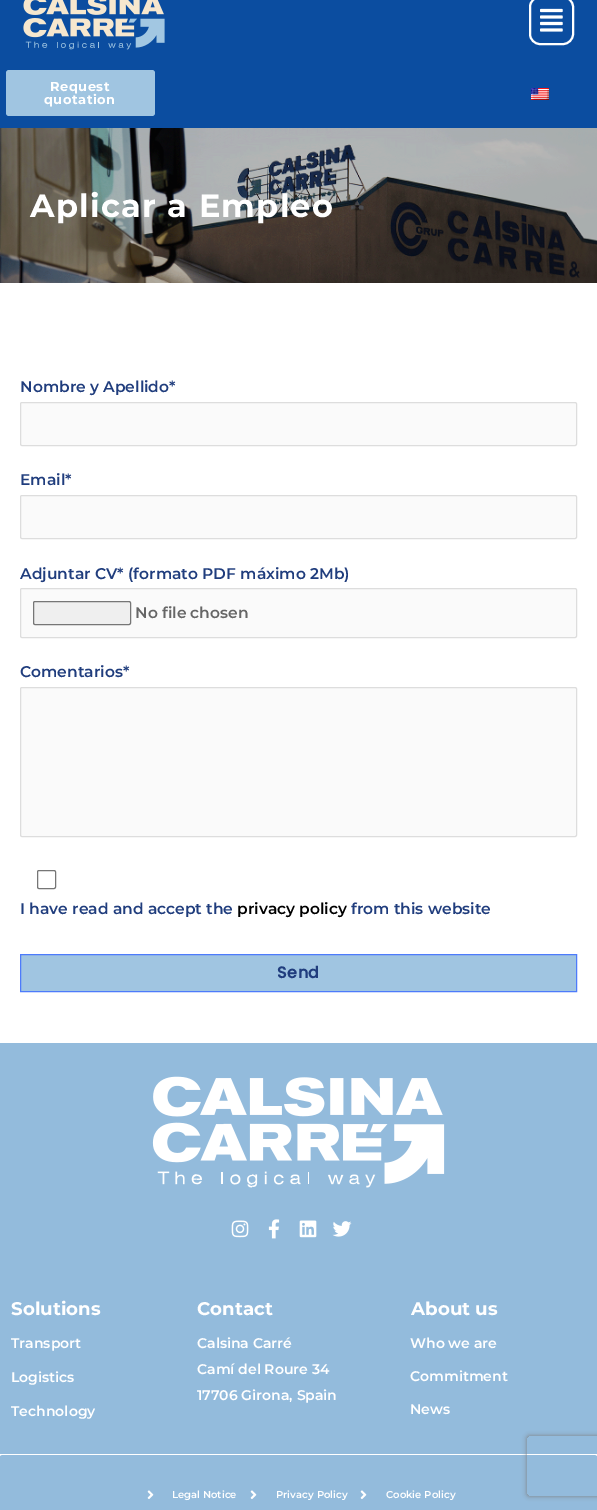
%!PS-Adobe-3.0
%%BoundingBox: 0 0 597 1510
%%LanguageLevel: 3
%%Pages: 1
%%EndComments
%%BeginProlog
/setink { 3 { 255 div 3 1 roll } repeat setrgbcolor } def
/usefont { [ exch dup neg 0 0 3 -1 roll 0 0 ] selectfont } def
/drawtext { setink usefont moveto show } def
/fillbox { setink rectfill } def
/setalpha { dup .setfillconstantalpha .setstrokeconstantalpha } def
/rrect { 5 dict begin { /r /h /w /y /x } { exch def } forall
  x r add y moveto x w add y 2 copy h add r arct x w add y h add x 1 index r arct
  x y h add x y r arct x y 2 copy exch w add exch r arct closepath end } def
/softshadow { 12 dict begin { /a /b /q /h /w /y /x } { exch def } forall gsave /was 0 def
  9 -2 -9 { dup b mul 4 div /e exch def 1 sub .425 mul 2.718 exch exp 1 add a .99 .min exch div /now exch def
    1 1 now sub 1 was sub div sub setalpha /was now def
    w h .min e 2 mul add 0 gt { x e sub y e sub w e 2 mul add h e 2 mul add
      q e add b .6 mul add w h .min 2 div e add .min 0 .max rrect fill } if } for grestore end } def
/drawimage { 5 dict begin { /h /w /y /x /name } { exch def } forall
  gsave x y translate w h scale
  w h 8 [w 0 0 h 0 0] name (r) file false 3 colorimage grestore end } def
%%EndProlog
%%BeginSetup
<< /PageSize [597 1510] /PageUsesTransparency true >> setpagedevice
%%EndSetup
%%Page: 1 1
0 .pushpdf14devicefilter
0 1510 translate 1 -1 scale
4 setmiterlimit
0 0 597 1510 255 255 255 fillbox
0 0 597 128 11 77 160 fillbox
(assets/img1.rgb) 23 0 142 50 drawimage
255 255 255 setink
2 setlinewidth
530 -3 43 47 10 rrect stroke
(assets/img2.rgb) 540 8 23 24 drawimage
160 197 225 setink
6 70 149 46 3 rrect fill
/Montserrat-Bold 13 usefont
255 255 255 setink
50 91 moveto 0.5 0 (Request) ashow
44 104 moveto 0.5 0 (quotation) ashow
(assets/img3.rgb) 531 88 18 12 drawimage
(assets/img4.rgb) 0 128 597 155 drawimage
/Montserrat-Bold 32 usefont
30 217 moveto 1.25 0 (Aplicar a Empleo) ashow
(Nombre y Apellido*) 20 392 /Montserrat-SemiBold 15.5 32 61 125 drawtext
250 250 250 setink
20.5 402.5 556 43 1.5 rrect gsave fill grestore
221 221 221 setink
1 setlinewidth
stroke
(Email*) 20 485 /Montserrat-SemiBold 15.5 32 61 125 drawtext
250 250 250 setink
20.5 495.5 556 43 1.5 rrect gsave fill grestore
221 221 221 setink
stroke
(Adjuntar CV* \(formato PDF máximo 2Mb\)) 20 579 /Montserrat-SemiBold 15.5 32 61 125 drawtext
250 250 250 setink
20.5 588.5 556 49 1.5 rrect gsave fill grestore
221 221 221 setink
stroke
239 239 239 setink
33.5 601.5 97 23 1.5 rrect gsave fill grestore
118 118 118 setink
stroke
(No file chosen) 135 618 /Montserrat-SemiBold 15.5 102 102 102 drawtext
(Comentarios*) 20 677 /Montserrat-SemiBold 15.5 32 61 125 drawtext
250 250 250 setink
20.5 687.5 556 149 1.5 rrect gsave fill grestore
221 221 221 setink
stroke
118 118 118 setink
37.5 870.5 18 18 1.5 rrect stroke
(I have read and accept the) 20 914 /Montserrat-SemiBold 15.5 32 61 125 drawtext
(privacy policy) 237 914 /Montserrat-SemiBold 15.5 0 0 0 drawtext
(from this website) 351 914 /Montserrat-SemiBold 15.5 32 61 125 drawtext
160 197 225 setink
20.5 954.5 moveto 576.5 954.5 lineto 576.5 991.5 lineto 20.5 991.5 lineto closepath gsave fill grestore
77 123 251 setink
stroke
/Poppins-Bold 16 usefont
32 61 125 setink
277 978 moveto 0.5 0 (Send) ashow
0 1043 597 411 147 187 220 fillbox
(assets/img5.rgb) 152 1076 293 112 drawimage
(assets/img6.rgb) 231 1220 18 18 drawimage
(assets/img7.rgb) 268 1219 12 20 drawimage
(assets/img8.rgb) 299 1220 18 18 drawimage
(assets/img9.rgb) 332 1221 20 16 drawimage
(Solutions) 11 1315 /Montserrat-Bold 18.25 255 255 255 drawtext
(Transport) 11 1348 /Montserrat-SemiBold 14 255 255 255 drawtext
(Logistics) 11 1382 /Montserrat-SemiBold 14 255 255 255 drawtext
(Technology) 11 1416 /Montserrat-SemiBold 14 255 255 255 drawtext
(Contact) 197 1315 /Montserrat-Bold 18.25 255 255 255 drawtext
(Calsina Carré) 197 1348 /Montserrat-SemiBold 14 255 255 255 drawtext
(Camí del Roure 34) 197 1374 /Montserrat-SemiBold 14 255 255 255 drawtext
(17706 Girona, Spain) 197 1400 /Montserrat-SemiBold 14 255 255 255 drawtext
(About us) 411 1315 /Montserrat-Bold 18.25 255 255 255 drawtext
(Who we are) 410 1348 /Montserrat-SemiBold 14 255 255 255 drawtext
(Commitment) 410 1381 /Montserrat-SemiBold 14 255 255 255 drawtext
(News) 410 1414 /Montserrat-SemiBold 14 255 255 255 drawtext
147 187 220 setink
3 1455 moveto 594 1455 lineto 596 1455 597 1456 597 1457 curveto 597 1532 lineto 597 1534 596 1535 594 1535 curveto 3 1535 lineto 1 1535 0 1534 0 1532 curveto 0 1457 lineto 0 1456 1 1455 3 1455 curveto closepath fill
(assets/img10.rgb) 147 1490 7 9 drawimage
(Legal Notice) 172 1498 /Montserrat-SemiBold 10 255 255 255 drawtext
(assets/img10.rgb) 250 1490 7 9 drawimage
(Privacy Policy) 276 1498 /Montserrat-SemiBold 10 255 255 255 drawtext
(assets/img10.rgb) 360 1490 7 9 drawimage
(Cookie Policy) 386 1498 /Montserrat-SemiBold 10 255 255 255 drawtext
gsave
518 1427 moveto 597 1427 lineto 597 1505 lineto 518 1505 lineto closepath 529 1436 moveto 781 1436 lineto 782 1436 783 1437 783 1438 curveto 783 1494 lineto 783 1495 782 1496 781 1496 curveto 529 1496 lineto 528 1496 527 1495 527 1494 curveto 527 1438 lineto 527 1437 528 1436 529 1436 curveto closepath eoclip newpath
128 128 128 setink
527 1436 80 60 2 2.5 1 softshadow
grestore
.poppdf14devicefilter showpage
%%EOF
